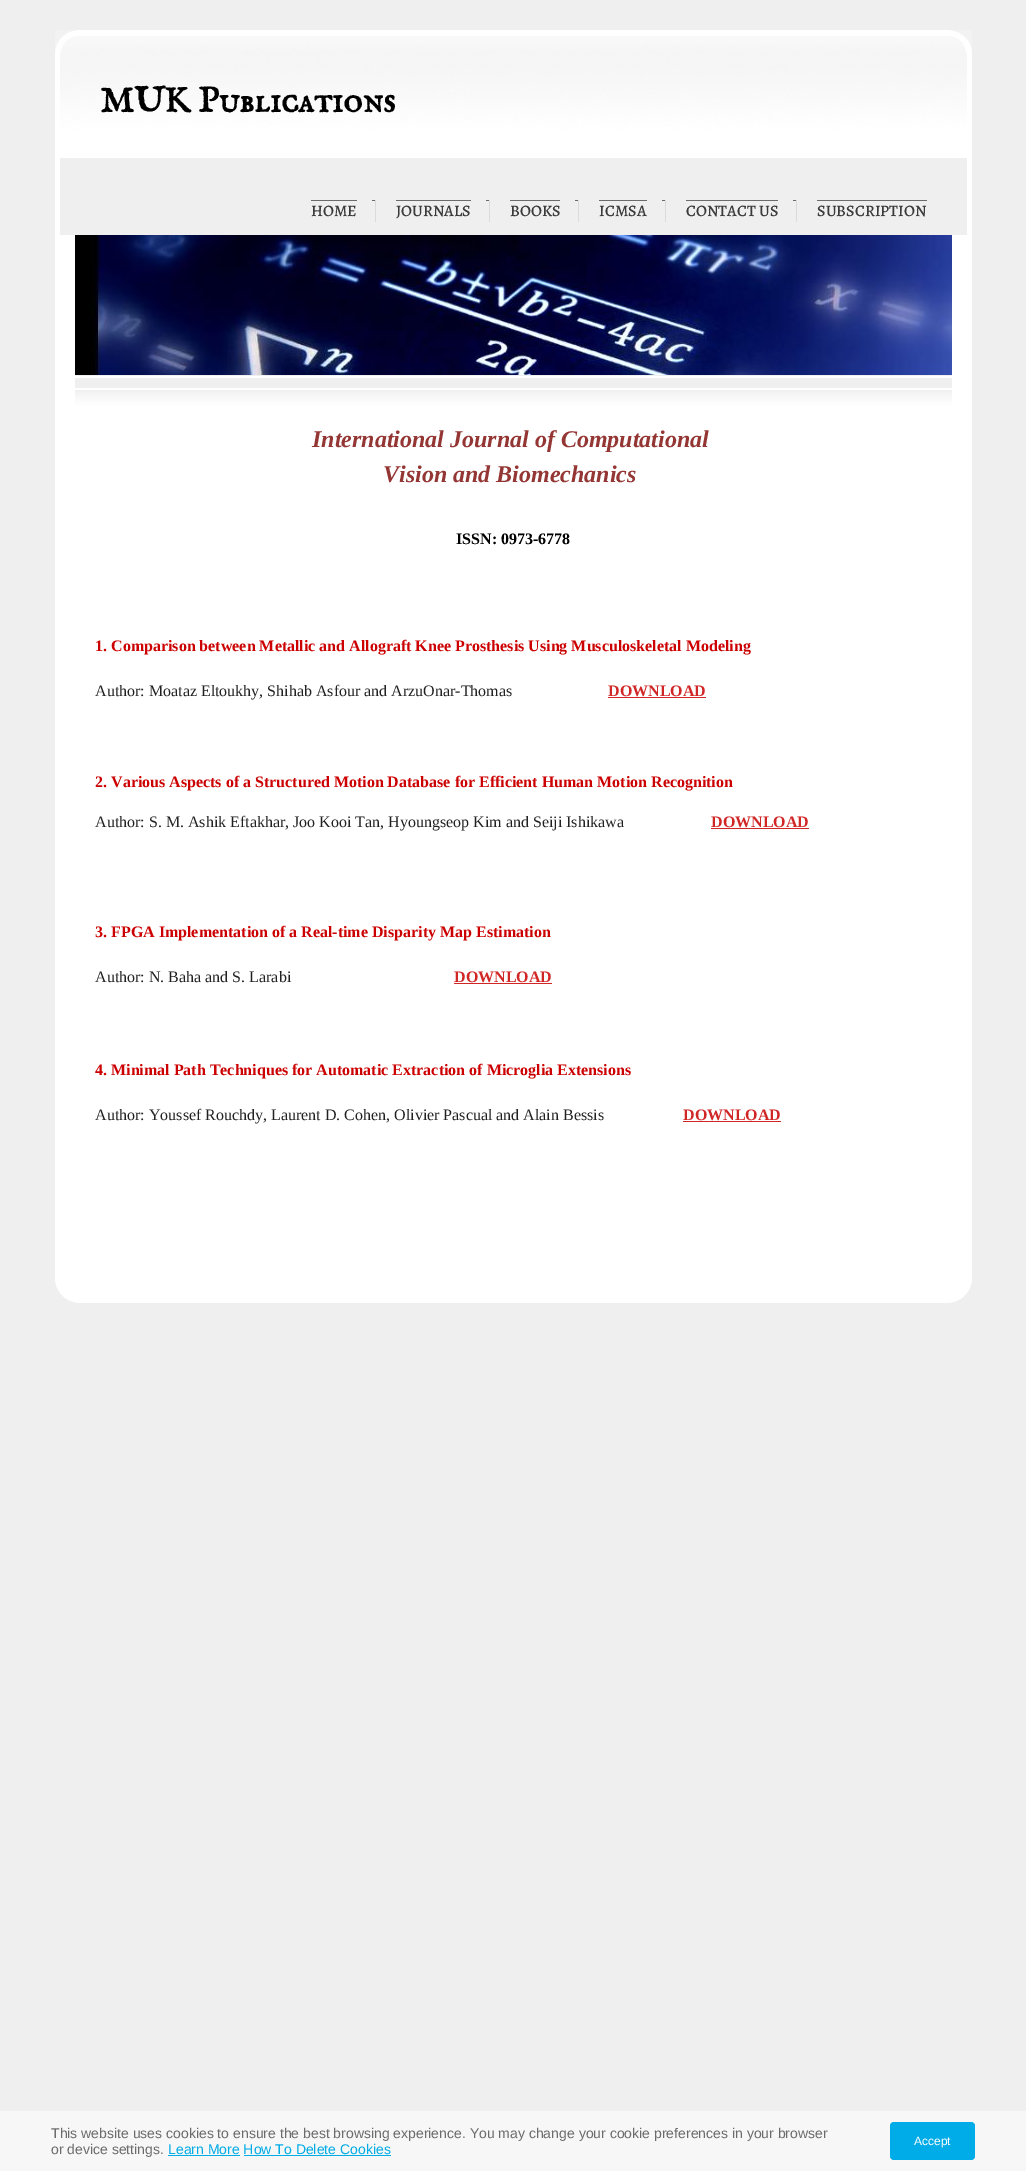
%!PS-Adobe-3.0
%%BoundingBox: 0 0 1026 2171
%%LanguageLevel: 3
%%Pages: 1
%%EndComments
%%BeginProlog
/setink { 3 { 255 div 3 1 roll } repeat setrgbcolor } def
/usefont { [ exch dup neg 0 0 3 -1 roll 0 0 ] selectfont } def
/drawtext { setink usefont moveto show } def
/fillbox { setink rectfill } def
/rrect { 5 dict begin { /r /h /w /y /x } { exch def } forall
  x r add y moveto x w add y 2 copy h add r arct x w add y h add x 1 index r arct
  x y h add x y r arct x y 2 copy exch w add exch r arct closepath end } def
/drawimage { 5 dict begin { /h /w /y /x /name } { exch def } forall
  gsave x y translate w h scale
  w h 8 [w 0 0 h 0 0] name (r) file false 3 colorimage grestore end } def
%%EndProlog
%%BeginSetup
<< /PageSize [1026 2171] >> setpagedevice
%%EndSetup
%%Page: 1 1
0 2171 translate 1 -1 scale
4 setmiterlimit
0 0 1026 2171 239 239 239 fillbox
(assets/img1.rgb) 55 30 917 24 drawimage
(assets/img2.rgb) 60 54 907 104 drawimage
967 54 5 181 255 255 255 fillbox
55 54 5 181 255 255 255 fillbox
(MUK Publications) 100 112 /IMFELLEnglishSC-Bold 36 0 0 0 drawtext
372 200 3 1 107 107 107 fillbox
486 200 3 1 107 107 107 fillbox
575 200 3 1 107 107 107 fillbox
662 200 3 1 107 107 107 fillbox
793 200 3 1 107 107 107 fillbox
(HOME) 311 216 /Alegreya-Medium 16 59 59 59 drawtext
311 200 46 1 107 107 107 fillbox
(JOURNALS) 396 216 /Alegreya-Medium 16 59 59 59 drawtext
375 200 1 22 219 219 219 fillbox
396 200 75 1 107 107 107 fillbox
(BOOKS) 510 216 /Alegreya-Medium 16 59 59 59 drawtext
489 200 1 22 219 219 219 fillbox
510 200 50 1 107 107 107 fillbox
(ICMSA) 599 216 /Alegreya-Medium 16 59 59 59 drawtext
578 200 1 22 219 219 219 fillbox
599 200 48 1 107 107 107 fillbox
(CONTACT US) 686 216 /Alegreya-Medium 16 59 59 59 drawtext
665 200 1 22 219 219 219 fillbox
686 200 92 1 107 107 107 fillbox
(SUBSCRIPTION) 817 216 /Alegreya-Medium 16 59 59 59 drawtext
796 200 1 22 219 219 219 fillbox
817 200 110 1 107 107 107 fillbox
(assets/img3.rgb) 75 376 877 30 drawimage
952 235 20 171 255 255 255 fillbox
55 235 20 171 255 255 255 fillbox
(assets/img4.rgb) 75 235 877 140 drawimage
55 406 917 876 255 255 255 fillbox
(assets/img5.rgb) 55 1282 917 21 drawimage
(International Journal of Computational) 312 447 /LiberationSerif-BoldItalic 24 148 54 52 drawtext
(Vision and Biomechanics) 383 482 /LiberationSerif-BoldItalic 24 148 54 52 drawtext
(ISSN: 0973-6778) 456 544 /LiberationSerif-Bold 16 0 0 0 drawtext
(1. Comparison between Metallic and Allograft Knee Prosthesis Using Musculoskeletal Modeling) 95 651 /LiberationSerif-Bold 16 204 0 0 drawtext
(Author: Moataz Eltoukhy, Shihab Asfour and ArzuOnar-Thomas) 95 696 /LiberationSerif-Regular 16 33 33 33 drawtext
(DOWNLOAD) 608 696 /LiberationSerif-Bold 16 209 38 38 drawtext
608 697 98 1 209 38 38 fillbox
(2. Various Aspects of a Structured Motion Database for Efficient Human Motion Recognition) 95 787 /LiberationSerif-Bold 16 204 0 0 drawtext
(Author: S. M. Ashik Eftakhar, Joo Kooi Tan, Hyoungseop Kim and Seiji Ishikawa) 95 827 /LiberationSerif-Regular 16 33 33 33 drawtext
(DOWNLOAD) 711 827 /LiberationSerif-Bold 16 209 38 38 drawtext
711 828 98 1 209 38 38 fillbox
(3. FPGA Implementation of a Real-time Disparity Map Estimation) 95 937 /LiberationSerif-Bold 16 204 0 0 drawtext
(Author: N. Baha and S. Larabi) 95 982 /LiberationSerif-Regular 16 33 33 33 drawtext
(DOWNLOAD) 454 982 /LiberationSerif-Bold 16 209 38 38 drawtext
454 983 98 1 209 38 38 fillbox
(4. Minimal Path Techniques for Automatic Extraction of Microglia Extensions) 95 1075 /LiberationSerif-Bold 16 204 0 0 drawtext
(Author: Youssef Rouchdy, Laurent D. Cohen, Olivier Pascual and Alain Bessis) 95 1120 /LiberationSerif-Regular 16 33 33 33 drawtext
(DOWNLOAD) 683 1120 /LiberationSerif-Bold 16 209 38 38 drawtext
683 1121 98 1 209 38 38 fillbox
0 2111 1026 60 247 247 247 fillbox
(This website uses cookies to ensure the best browsing experience. You may change your cookie preferences in your browser) 51 2138 /LiberationSans-Regular 14 107 107 107 drawtext
(or device settings.) 51 2154 /LiberationSans-Regular 14 107 107 107 drawtext
(Learn More How To Delete Cookies) 168 2154 /LiberationSans-Regular 14 0 172 230 drawtext
168 2155 72 1 0 172 230 fillbox
244 2155 147 1 0 172 230 fillbox
0 172 232 setink
890 2122 85 38 4 rrect fill
(Accept) 914 2145 /LiberationSans-Regular 12 255 255 255 drawtext
showpage
%%EOF
